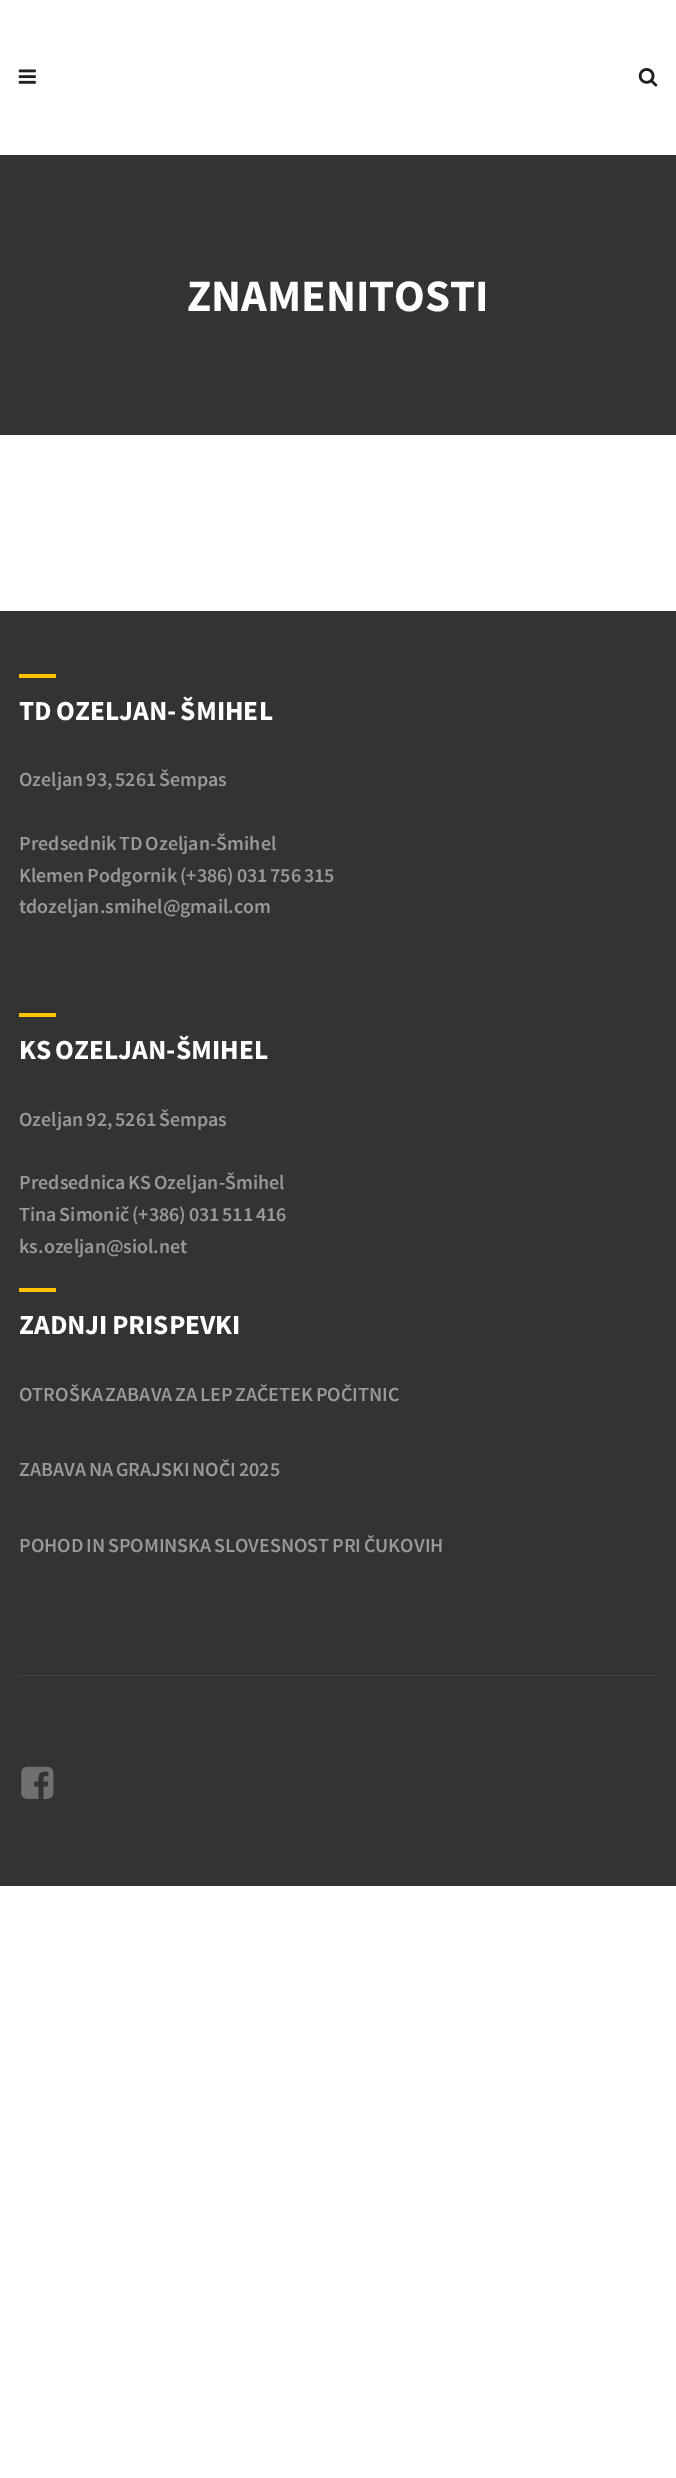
%!PS-Adobe-3.0
%%BoundingBox: 0 0 676 2478
%%LanguageLevel: 3
%%Pages: 1
%%EndComments
%%BeginProlog
/setink { 3 { 255 div 3 1 roll } repeat setrgbcolor } def
/usefont { [ exch dup neg 0 0 3 -1 roll 0 0 ] selectfont } def
/drawtext { setink usefont moveto show } def
/fillbox { setink rectfill } def
/drawimage { 5 dict begin { /h /w /y /x /name } { exch def } forall
  gsave x y translate w h scale
  w h 8 [w 0 0 h 0 0] name (r) file false 3 colorimage grestore end } def
%%EndProlog
%%BeginSetup
<< /PageSize [676 2478] >> setpagedevice
%%EndSetup
%%Page: 1 1
0 2478 translate 1 -1 scale
4 setmiterlimit
0 0 676 2478 255 255 255 fillbox
(assets/img1.rgb) 18 69 18 15 drawimage
(assets/img2.rgb) 638 68 20 19 drawimage
0 155 676 280 51 51 51 fillbox
(ZNAMENITOSTI) 187 311 /SourceSansPro-Bold 45 255 255 255 drawtext
0 611 676 1275 51 51 51 fillbox
19 1675 639 1 69 69 69 fillbox
19 674 37 4 255 195 0 fillbox
/SourceSansPro-Bold 27.5 usefont
255 255 255 setink
19 720 moveto -1.25 0 32 (TD OZELJAN- ŠMIHEL) widthshow
/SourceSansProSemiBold-SemiBold 20 usefont
153 153 153 setink
19 786 moveto -1.25 0 32 (Ozeljan 93, 5261 Šempas) widthshow
19 850 moveto -1.25 0 32 (Predsednik TD Ozeljan-Šmihel) widthshow
19 882 moveto -1.25 0 32 (Klemen Podgornik \(+386\) 031 756 315) widthshow
(tdozeljan.smihel@gmail.com) 19 913 /SourceSansProSemiBold-SemiBold 20 153 153 153 drawtext
19 1013 37 4 255 195 0 fillbox
/SourceSansPro-Bold 27.5 usefont
255 255 255 setink
19 1059 moveto -1.25 0 32 (KS OZELJAN-ŠMIHEL) widthshow
/SourceSansProSemiBold-SemiBold 20 usefont
153 153 153 setink
19 1126 moveto -1.25 0 32 (Ozeljan 92,) widthshow
115 1126 moveto -1.25 0 32 (5261 Šempas) widthshow
19 1189 moveto -1.25 0 32 (Predsednica KS Ozeljan-Šmihel) widthshow
19 1221 moveto -1.25 0 32 (Tina Simonič \(+386\) 031 511 416) widthshow
(ks.ozeljan@siol.net) 19 1253 /SourceSansProSemiBold-SemiBold 20 153 153 153 drawtext
19 1288 37 4 255 195 0 fillbox
/SourceSansPro-Bold 27.5 usefont
255 255 255 setink
19 1334 moveto -1.25 0 32 (ZADNJI PRISPEVKI) widthshow
/SourceSansProSemiBold-SemiBold 20 usefont
153 153 153 setink
19 1401 moveto -1.25 0 32 (OTROŠKA ZABAVA ZA LEP ZAČETEK POČITNIC) widthshow
19 1476 moveto -1.25 0 32 (ZABAVA NA GRAJSKI NOČI 2025) widthshow
19 1552 moveto -1.25 0 32 (POHOD IN SPOMINSKA SLOVESNOST PRI ČUKOVIH) widthshow
(assets/img3.rgb) 21 1766 33 33 drawimage
showpage
%%EOF
